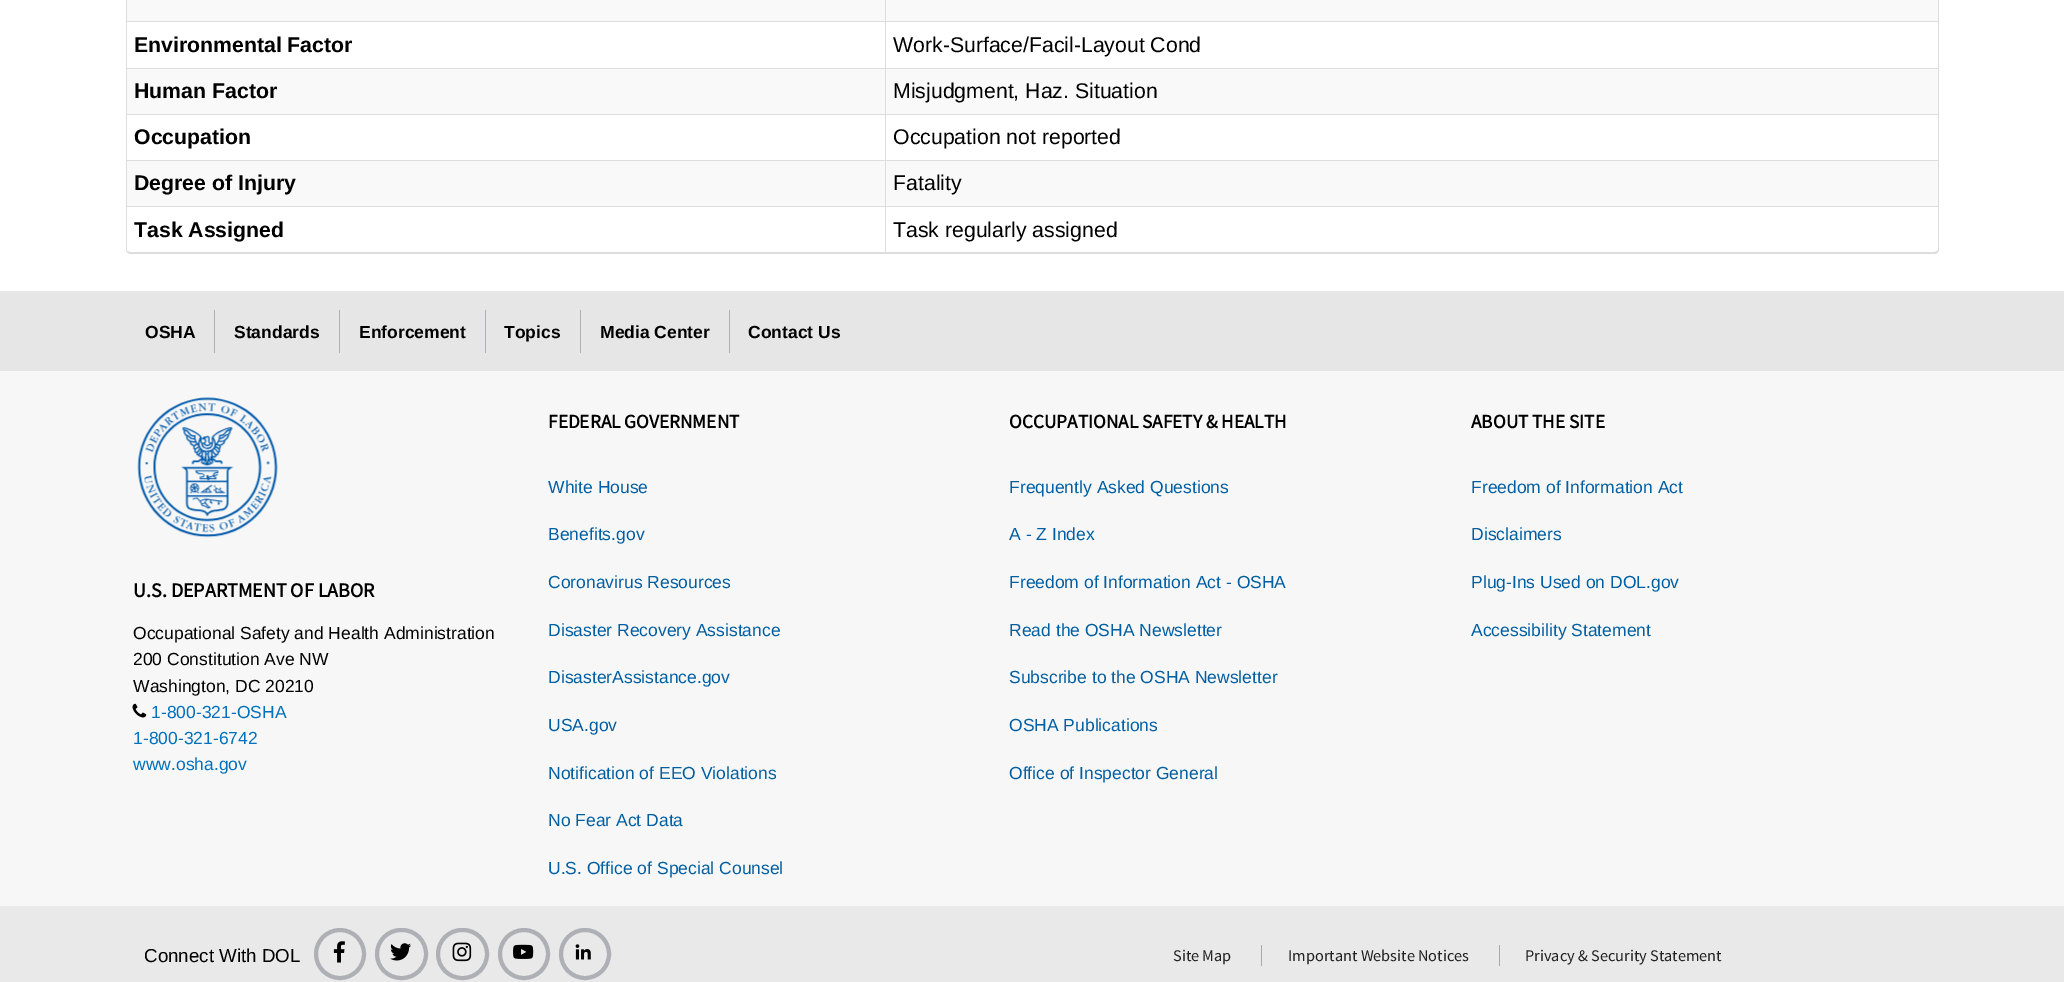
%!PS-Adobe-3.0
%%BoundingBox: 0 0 2064 982
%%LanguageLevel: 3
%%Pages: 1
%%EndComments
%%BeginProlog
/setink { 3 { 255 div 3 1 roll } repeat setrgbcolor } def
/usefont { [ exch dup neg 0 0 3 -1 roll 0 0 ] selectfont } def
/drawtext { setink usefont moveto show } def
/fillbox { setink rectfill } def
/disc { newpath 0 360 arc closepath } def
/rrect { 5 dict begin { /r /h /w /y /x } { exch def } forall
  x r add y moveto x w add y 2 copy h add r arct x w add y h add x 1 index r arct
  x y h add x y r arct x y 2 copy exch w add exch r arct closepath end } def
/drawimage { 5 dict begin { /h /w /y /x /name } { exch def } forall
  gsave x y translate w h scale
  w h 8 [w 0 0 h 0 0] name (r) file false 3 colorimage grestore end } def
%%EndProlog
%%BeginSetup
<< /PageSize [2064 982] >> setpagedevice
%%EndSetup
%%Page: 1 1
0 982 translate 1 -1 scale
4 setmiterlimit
0 0 2064 982 255 255 255 fillbox
221 221 221 setink
131 -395 moveto 1934 -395 lineto 1937 -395 1939 -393 1939 -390 curveto 1939 249 lineto 1939 252 1937 254 1934 254 curveto 131 254 lineto 128 254 126 252 126 249 curveto 126 -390 lineto 126 -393 128 -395 131 -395 curveto closepath 131 -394 moveto 1934 -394 lineto 1936 -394 1938 -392 1938 -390 curveto 1938 249 lineto 1938 251 1936 252 1934 252 curveto 131 252 lineto 128 252 126 251 126 249 curveto 126 -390 lineto 126 -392 128 -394 131 -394 curveto closepath eofill
127 0 758 21 249 249 249 fillbox
126 0 1 21 221 221 221 fillbox
886 0 1052 21 249 249 249 fillbox
885 0 1 21 221 221 221 fillbox
126 21 1812 1 221 221 221 fillbox
126 21 1 47 221 221 221 fillbox
(Environmental Factor) 134 52 /LiberationSans-Bold 21.25 0 0 0 drawtext
885 21 1 47 221 221 221 fillbox
(Work-Surface/Facil-Layout Cond) 893 52 /LiberationSans-Regular 21.25 0 0 0 drawtext
127 69 758 45 249 249 249 fillbox
126 68 1812 1 221 221 221 fillbox
126 68 1 46 221 221 221 fillbox
(Human Factor) 134 98 /LiberationSans-Bold 21.25 0 0 0 drawtext
886 69 1052 45 249 249 249 fillbox
885 68 1 46 221 221 221 fillbox
(Misjudgment, Haz. Situation) 893 98 /LiberationSans-Regular 21.25 0 0 0 drawtext
126 114 1812 1 221 221 221 fillbox
126 114 1 46 221 221 221 fillbox
(Occupation) 134 144 /LiberationSans-Bold 21.25 0 0 0 drawtext
885 114 1 46 221 221 221 fillbox
(Occupation not reported) 893 144 /LiberationSans-Regular 21.25 0 0 0 drawtext
127 161 758 45 249 249 249 fillbox
126 160 1812 1 221 221 221 fillbox
126 160 1 46 221 221 221 fillbox
(Degree of Injury) 134 190 /LiberationSans-Bold 21.25 0 0 0 drawtext
886 161 1052 45 249 249 249 fillbox
885 160 1 46 221 221 221 fillbox
(Fatality) 893 190 /LiberationSans-Regular 21.25 0 0 0 drawtext
126 206 1812 1 221 221 221 fillbox
126 206 1 44 221 221 221 fillbox
(Task Assigned) 134 237 /LiberationSans-Bold 21.25 0 0 0 drawtext
885 206 1 47 221 221 221 fillbox
(Task regularly assigned) 893 237 /LiberationSans-Regular 21.25 0 0 0 drawtext
0 291 2064 80 230 230 230 fillbox
(OSHA) 145 338 /LiberationSans-Bold 17.5 0 0 0 drawtext
214 310 1 43 174 176 181 fillbox
(Standards) 234 338 /LiberationSans-Bold 17.5 0 0 0 drawtext
339 310 1 43 174 176 181 fillbox
(Enforcement) 359 338 /LiberationSans-Bold 17.5 0 0 0 drawtext
485 310 1 43 174 176 181 fillbox
(Topics) 504 338 /LiberationSans-Bold 17.5 0 0 0 drawtext
580 310 1 43 174 176 181 fillbox
(Media Center) 600 338 /LiberationSans-Bold 17.5 0 0 0 drawtext
729 310 1 43 174 176 181 fillbox
(Contact Us) 748 338 /LiberationSans-Bold 17.5 0 0 0 drawtext
0 371 2064 535 247 247 247 fillbox
(assets/img1.rgb) 137 397 141 141 drawimage
(U.S. DEPARTMENT OF LABOR) 133 597 /SourceSansPro-Bold 20 0 0 0 drawtext
(Occupational Safety and Health Administration) 133 639 /LiberationSans-Regular 17.5 0 0 0 drawtext
(200 Constitution Ave NW) 133 665 /LiberationSans-Regular 17.5 0 0 0 drawtext
(Washington, DC 20210) 133 692 /LiberationSans-Regular 17.5 0 0 0 drawtext
(assets/img2.rgb) 132 703 15 15 drawimage
(1-800-321-OSHA) 151 718 /LiberationSans-Regular 17.5 0 113 188 drawtext
(1-800-321-6742) 133 744 /LiberationSans-Regular 17.5 0 113 188 drawtext
(www.osha.gov) 133 770 /LiberationSans-Regular 17.5 0 113 188 drawtext
(FEDERAL GOVERNMENT) 548 428 /SourceSansPro-Bold 19.25 0 0 0 drawtext
(White House) 548 493 /LiberationSans-Regular 17.5 0 94 162 drawtext
(Benefits.gov) 548 540 /LiberationSans-Regular 17.5 0 94 162 drawtext
(Coronavirus Resources) 548 588 /LiberationSans-Regular 17.5 0 94 162 drawtext
(Disaster Recovery Assistance) 548 636 /LiberationSans-Regular 17.5 0 94 162 drawtext
(DisasterAssistance.gov) 548 683 /LiberationSans-Regular 17.5 0 94 162 drawtext
(USA.gov) 548 731 /LiberationSans-Regular 17.5 0 94 162 drawtext
(Notification of EEO Violations) 548 779 /LiberationSans-Regular 17.5 0 94 162 drawtext
(No Fear Act Data) 548 826 /LiberationSans-Regular 17.5 0 94 162 drawtext
(U.S. Office of Special Counsel) 548 874 /LiberationSans-Regular 17.5 0 94 162 drawtext
(OCCUPATIONAL SAFETY & HEALTH) 1009 428 /SourceSansPro-Bold 19.25 0 0 0 drawtext
(Frequently Asked Questions) 1009 493 /LiberationSans-Regular 17.5 0 94 162 drawtext
(A - Z Index) 1009 540 /LiberationSans-Regular 17.5 0 94 162 drawtext
(Freedom of Information Act - OSHA) 1009 588 /LiberationSans-Regular 17.5 0 94 162 drawtext
(Read the OSHA Newsletter) 1009 636 /LiberationSans-Regular 17.5 0 94 162 drawtext
(Subscribe to the OSHA Newsletter) 1009 683 /LiberationSans-Regular 17.5 0 94 162 drawtext
(OSHA Publications) 1009 731 /LiberationSans-Regular 17.5 0 94 162 drawtext
(Office of Inspector General) 1009 779 /LiberationSans-Regular 17.5 0 94 162 drawtext
(ABOUT THE SITE) 1471 428 /SourceSansPro-Bold 19.25 0 0 0 drawtext
(Freedom of Information Act) 1471 493 /LiberationSans-Regular 17.5 0 94 162 drawtext
(Disclaimers) 1471 540 /LiberationSans-Regular 17.5 0 94 162 drawtext
(Plug-Ins Used on DOL.gov) 1471 588 /LiberationSans-Regular 17.5 0 94 162 drawtext
(Accessibility Statement) 1471 636 /LiberationSans-Regular 17.5 0 94 162 drawtext
0 906 2064 76 233 233 233 fillbox
(Connect With DOL) 144 962 /LiberationSans-Regular 18.75 0 0 0 drawtext
174 176 181 setink
4 setlinewidth
340 954 24 disc stroke
(assets/img3.rgb) 333 941 12 22 drawimage
377 930 49 48 24 rrect stroke
(assets/img4.rgb) 390 943 21 18 drawimage
438 930 49 48 24 rrect stroke
(assets/img5.rgb) 452 942 20 20 drawimage
524 954 24 disc stroke
(assets/img6.rgb) 513 944 21 15 drawimage
585 954 24 disc stroke
(assets/img7.rgb) 575 944 16 16 drawimage
(Site Map) 1173 961 /SourceSansPro-Regular 16.25 33 33 33 drawtext
(Important Website Notices) 1288 961 /SourceSansPro-Regular 16.25 33 33 33 drawtext
1261 945 1 21 169 169 169 fillbox
(Privacy & Security Statement) 1525 961 /SourceSansPro-Regular 16.25 33 33 33 drawtext
1499 945 1 21 169 169 169 fillbox
showpage
%%EOF
